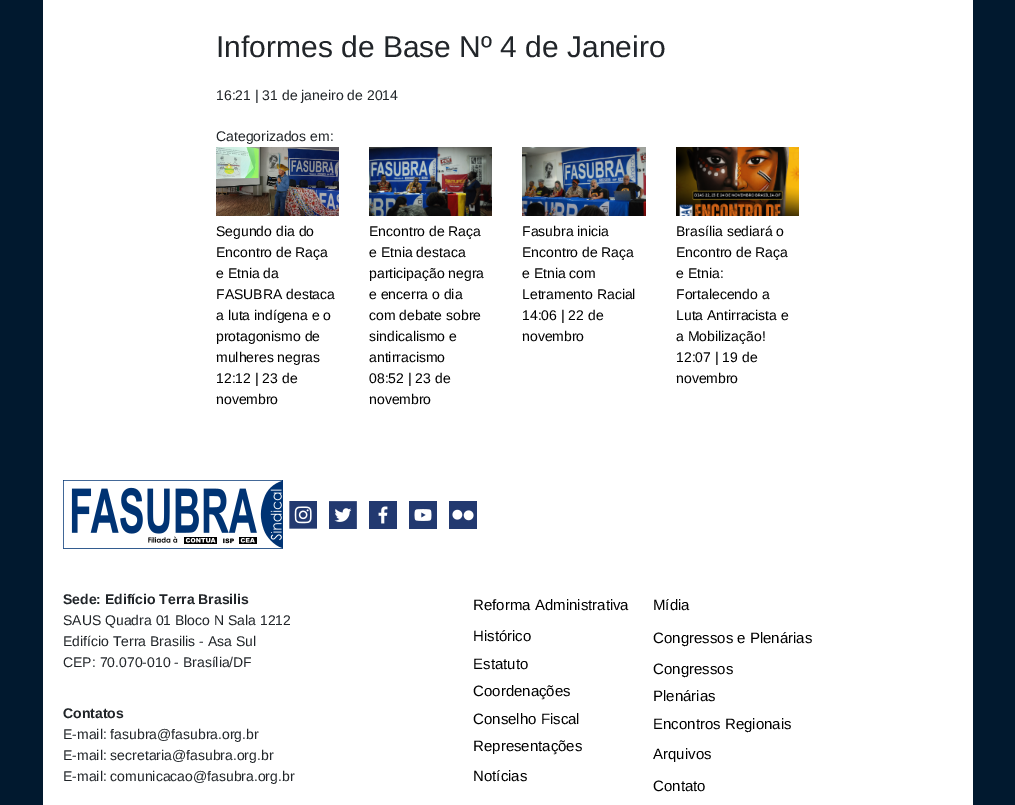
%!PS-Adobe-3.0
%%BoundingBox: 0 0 1015 805
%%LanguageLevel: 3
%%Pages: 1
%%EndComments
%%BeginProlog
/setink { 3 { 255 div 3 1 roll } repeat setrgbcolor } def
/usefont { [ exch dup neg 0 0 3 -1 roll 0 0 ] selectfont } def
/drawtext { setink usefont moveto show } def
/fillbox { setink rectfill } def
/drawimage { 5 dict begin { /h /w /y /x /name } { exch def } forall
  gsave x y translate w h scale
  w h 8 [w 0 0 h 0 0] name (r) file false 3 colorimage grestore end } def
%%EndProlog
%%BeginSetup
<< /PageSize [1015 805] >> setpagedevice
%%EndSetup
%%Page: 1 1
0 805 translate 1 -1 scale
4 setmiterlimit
0 0 1015 805 1 25 47 fillbox
43 0 930 805 255 255 255 fillbox
(Informes de Base Nº 4 de Janeiro) 216 57 /LiberationSans-Regular 30 33 37 41 drawtext
(16:21 | 31 de janeiro de 2014) 216 100 /LiberationSans-Regular 14 33 37 41 drawtext
(Categorizados em:) 216 141 /LiberationSans-Regular 14 33 37 41 drawtext
(assets/img1.rgb) 216 147 123 69 drawimage
(Segundo dia do) 216 236 /LiberationSans-Regular 14 0 0 0 drawtext
(Encontro de Raça) 216 257 /LiberationSans-Regular 14 0 0 0 drawtext
(e Etnia da) 216 278 /LiberationSans-Regular 14 0 0 0 drawtext
(FASUBRA destaca) 216 299 /LiberationSans-Regular 14 0 0 0 drawtext
(a luta indígena e o) 216 320 /LiberationSans-Regular 14 0 0 0 drawtext
(protagonismo de) 216 341 /LiberationSans-Regular 14 0 0 0 drawtext
(mulheres negras) 216 362 /LiberationSans-Regular 14 0 0 0 drawtext
(12:12 | 23 de) 216 383 /LiberationSans-Regular 14 0 0 0 drawtext
(novembro) 216 404 /LiberationSans-Regular 14 0 0 0 drawtext
(assets/img2.rgb) 369 147 123 69 drawimage
(Encontro de Raça) 369 236 /LiberationSans-Regular 14 0 0 0 drawtext
(e Etnia destaca) 369 257 /LiberationSans-Regular 14 0 0 0 drawtext
(participação negra) 369 278 /LiberationSans-Regular 14 0 0 0 drawtext
(e encerra o dia) 369 299 /LiberationSans-Regular 14 0 0 0 drawtext
(com debate sobre) 369 320 /LiberationSans-Regular 14 0 0 0 drawtext
(sindicalismo e) 369 341 /LiberationSans-Regular 14 0 0 0 drawtext
(antirracismo) 369 362 /LiberationSans-Regular 14 0 0 0 drawtext
(08:52 | 23 de) 369 383 /LiberationSans-Regular 14 0 0 0 drawtext
(novembro) 369 404 /LiberationSans-Regular 14 0 0 0 drawtext
(assets/img3.rgb) 522 147 124 69 drawimage
(Fasubra inicia) 522 236 /LiberationSans-Regular 14 0 0 0 drawtext
(Encontro de Raça) 522 257 /LiberationSans-Regular 14 0 0 0 drawtext
(e Etnia com) 522 278 /LiberationSans-Regular 14 0 0 0 drawtext
(Letramento Racial) 522 299 /LiberationSans-Regular 14 0 0 0 drawtext
(14:06 | 22 de) 522 320 /LiberationSans-Regular 14 0 0 0 drawtext
(novembro) 522 341 /LiberationSans-Regular 14 0 0 0 drawtext
(assets/img4.rgb) 676 147 123 69 drawimage
(Brasília sediará o) 676 236 /LiberationSans-Regular 14 0 0 0 drawtext
(Encontro de Raça) 676 257 /LiberationSans-Regular 14 0 0 0 drawtext
(e Etnia:) 676 278 /LiberationSans-Regular 14 0 0 0 drawtext
(Fortalecendo a) 676 299 /LiberationSans-Regular 14 0 0 0 drawtext
(Luta Antirracista e) 676 320 /LiberationSans-Regular 14 0 0 0 drawtext
(a Mobilização!) 676 341 /LiberationSans-Regular 14 0 0 0 drawtext
(12:07 | 19 de) 676 362 /LiberationSans-Regular 14 0 0 0 drawtext
(novembro) 676 383 /LiberationSans-Regular 14 0 0 0 drawtext
(assets/img5.rgb) 63 480 220 69 drawimage
(assets/img6.rgb) 289 501 28 28 drawimage
(assets/img7.rgb) 329 501 28 28 drawimage
(assets/img8.rgb) 369 501 28 28 drawimage
(assets/img9.rgb) 409 501 28 28 drawimage
(assets/img10.rgb) 449 501 28 28 drawimage
(Sede: Edifício Terra Brasilis) 63 604 /LiberationSans-Bold 14 33 37 41 drawtext
(SAUS Quadra 01 Bloco N Sala 1212) 63 625 /LiberationSans-Regular 14 33 37 41 drawtext
(Edifício Terra Brasilis - Asa Sul) 63 646 /LiberationSans-Regular 14 33 37 41 drawtext
(CEP: 70.070-010 - Brasília/DF) 63 667 /LiberationSans-Regular 14 33 37 41 drawtext
(Contatos) 63 718 /LiberationSans-Bold 14 33 37 41 drawtext
(E-mail: fasubra@fasubra.org.br) 63 739 /LiberationSans-Regular 14 33 37 41 drawtext
(E-mail: secretaria@fasubra.org.br) 63 760 /LiberationSans-Regular 14 33 37 41 drawtext
(E-mail: comunicacao@fasubra.org.br) 63 781 /LiberationSans-Regular 14 33 37 41 drawtext
(Reforma Administrativa) 473 610 /LiberationSans-Regular 15 0 0 0 drawtext
(Mídia) 653 610 /LiberationSans-Regular 15 0 0 0 drawtext
(Histórico) 473 641 /LiberationSans-Regular 15 0 0 0 drawtext
(Estatuto) 473 669 /LiberationSans-Regular 15 0 0 0 drawtext
(Coordenações) 473 696 /LiberationSans-Regular 15 0 0 0 drawtext
(Conselho Fiscal) 473 724 /LiberationSans-Regular 15 0 0 0 drawtext
(Representações) 473 751 /LiberationSans-Regular 15 0 0 0 drawtext
(Congressos e Plenárias) 653 643 /LiberationSans-Regular 15 0 0 0 drawtext
(Congressos) 653 674 /LiberationSans-Regular 15 0 0 0 drawtext
(Plenárias) 653 701 /LiberationSans-Regular 15 0 0 0 drawtext
(Encontros Regionais) 653 729 /LiberationSans-Regular 15 0 0 0 drawtext
(Arquivos) 653 759 /LiberationSans-Regular 15 0 0 0 drawtext
(Notícias) 473 781 /LiberationSans-Regular 15 0 0 0 drawtext
(Contato) 653 791 /LiberationSans-Regular 15 0 0 0 drawtext
showpage
%%EOF
